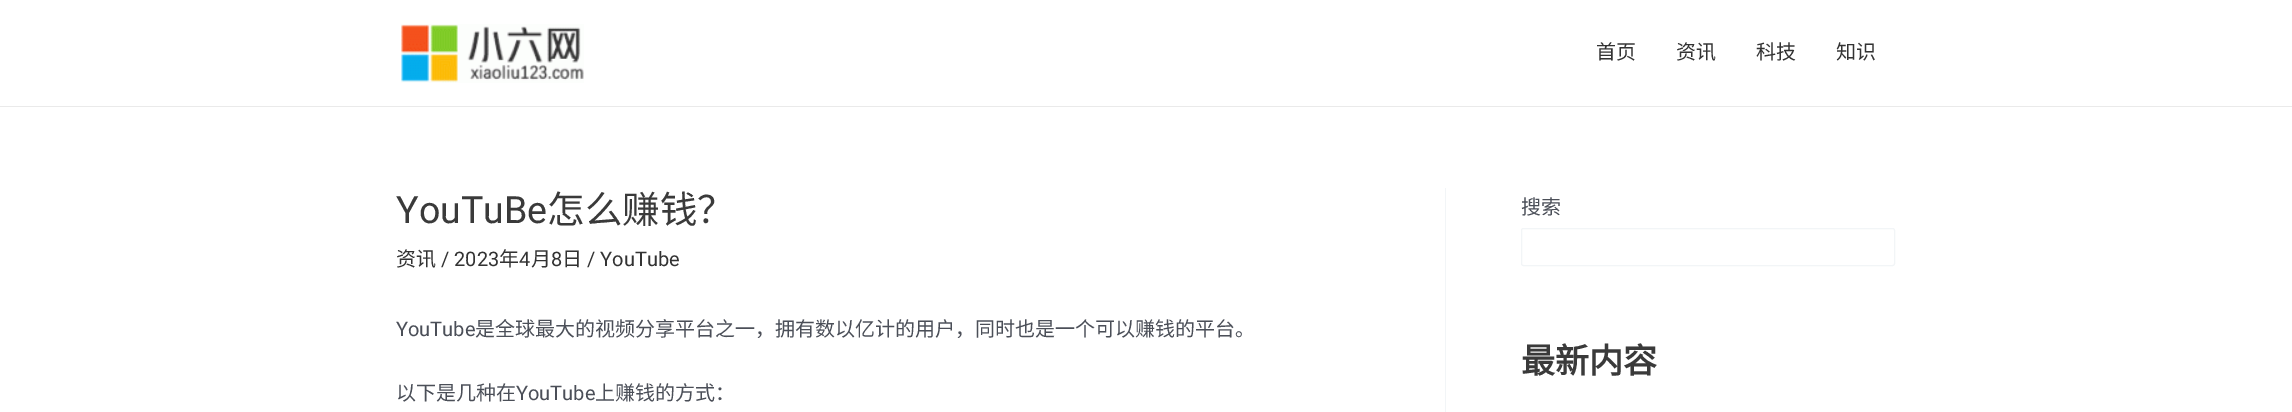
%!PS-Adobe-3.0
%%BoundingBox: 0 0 2292 412
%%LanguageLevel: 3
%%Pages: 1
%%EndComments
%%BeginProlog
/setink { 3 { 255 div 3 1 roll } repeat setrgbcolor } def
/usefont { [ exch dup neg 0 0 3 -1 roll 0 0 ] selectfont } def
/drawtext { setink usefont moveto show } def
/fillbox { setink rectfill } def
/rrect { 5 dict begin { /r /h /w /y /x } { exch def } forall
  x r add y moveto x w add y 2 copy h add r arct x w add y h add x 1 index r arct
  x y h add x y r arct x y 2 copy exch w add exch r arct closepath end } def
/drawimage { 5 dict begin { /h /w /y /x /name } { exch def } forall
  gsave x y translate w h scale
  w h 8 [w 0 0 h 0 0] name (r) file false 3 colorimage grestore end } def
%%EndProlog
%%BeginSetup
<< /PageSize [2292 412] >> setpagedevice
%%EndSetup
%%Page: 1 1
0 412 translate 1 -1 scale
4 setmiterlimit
0 0 2292 412 255 255 255 fillbox
0 106 2292 1 234 234 234 fillbox
(assets/img1.rgb) 401 24 183 59 drawimage
(首页) 1596 59 /NotoSansCJKSC-Regular 20 51 51 51 drawtext
(资讯) 1676 59 /NotoSansCJKSC-Regular 20 51 51 51 drawtext
(科技) 1756 59 /NotoSansCJKSC-Regular 20 51 51 51 drawtext
(知识) 1836 59 /NotoSansCJKSC-Regular 20 51 51 51 drawtext
1445 188 1 224 242 245 247 fillbox
(YouTuBe) 396 223 /Roboto-Regular 37.5 58 58 58 drawtext
(怎么赚钱？) 547 223 /NotoSansCJKSC-Regular 37.5 58 58 58 drawtext
(资讯) 396 266 /NotoSansCJKSC-Regular 20 51 51 51 drawtext
(/ 2023) 441 266 /Roboto-Regular 20 51 51 51 drawtext
(年) 499 266 /NotoSansCJKSC-Regular 20 51 51 51 drawtext
(4) 519 266 /Roboto-Regular 20 51 51 51 drawtext
(月) 531 266 /NotoSansCJKSC-Regular 20 51 51 51 drawtext
(8) 551 266 /Roboto-Regular 20 51 51 51 drawtext
(日) 562 266 /NotoSansCJKSC-Regular 20 51 51 51 drawtext
(/ YouTube) 587 266 /Roboto-Regular 20 51 51 51 drawtext
(YouTube) 396 336 /Roboto-Regular 20 75 79 88 drawtext
(是全球最大的视频分享平台之一，拥有数以亿计的用户，同时也是一个可以赚钱的平台。) 475 336 /NotoSansCJKSC-Regular 20 75 79 88 drawtext
(以下是几种在) 396 400 /NotoSansCJKSC-Regular 20 75 79 88 drawtext
(YouTube) 516 400 /Roboto-Regular 20 75 79 88 drawtext
(上赚钱的方式：) 595 400 /NotoSansCJKSC-Regular 20 75 79 88 drawtext
(搜索) 1521 214 /NotoSansCJKSC-Regular 20 75 79 88 drawtext
242 245 247 setink
1521.5 228.5 373 37 2 rrect stroke
(最新内容) 1521 373 /NotoSansCJKSC-Bold 34 58 58 58 drawtext
showpage
%%EOF
